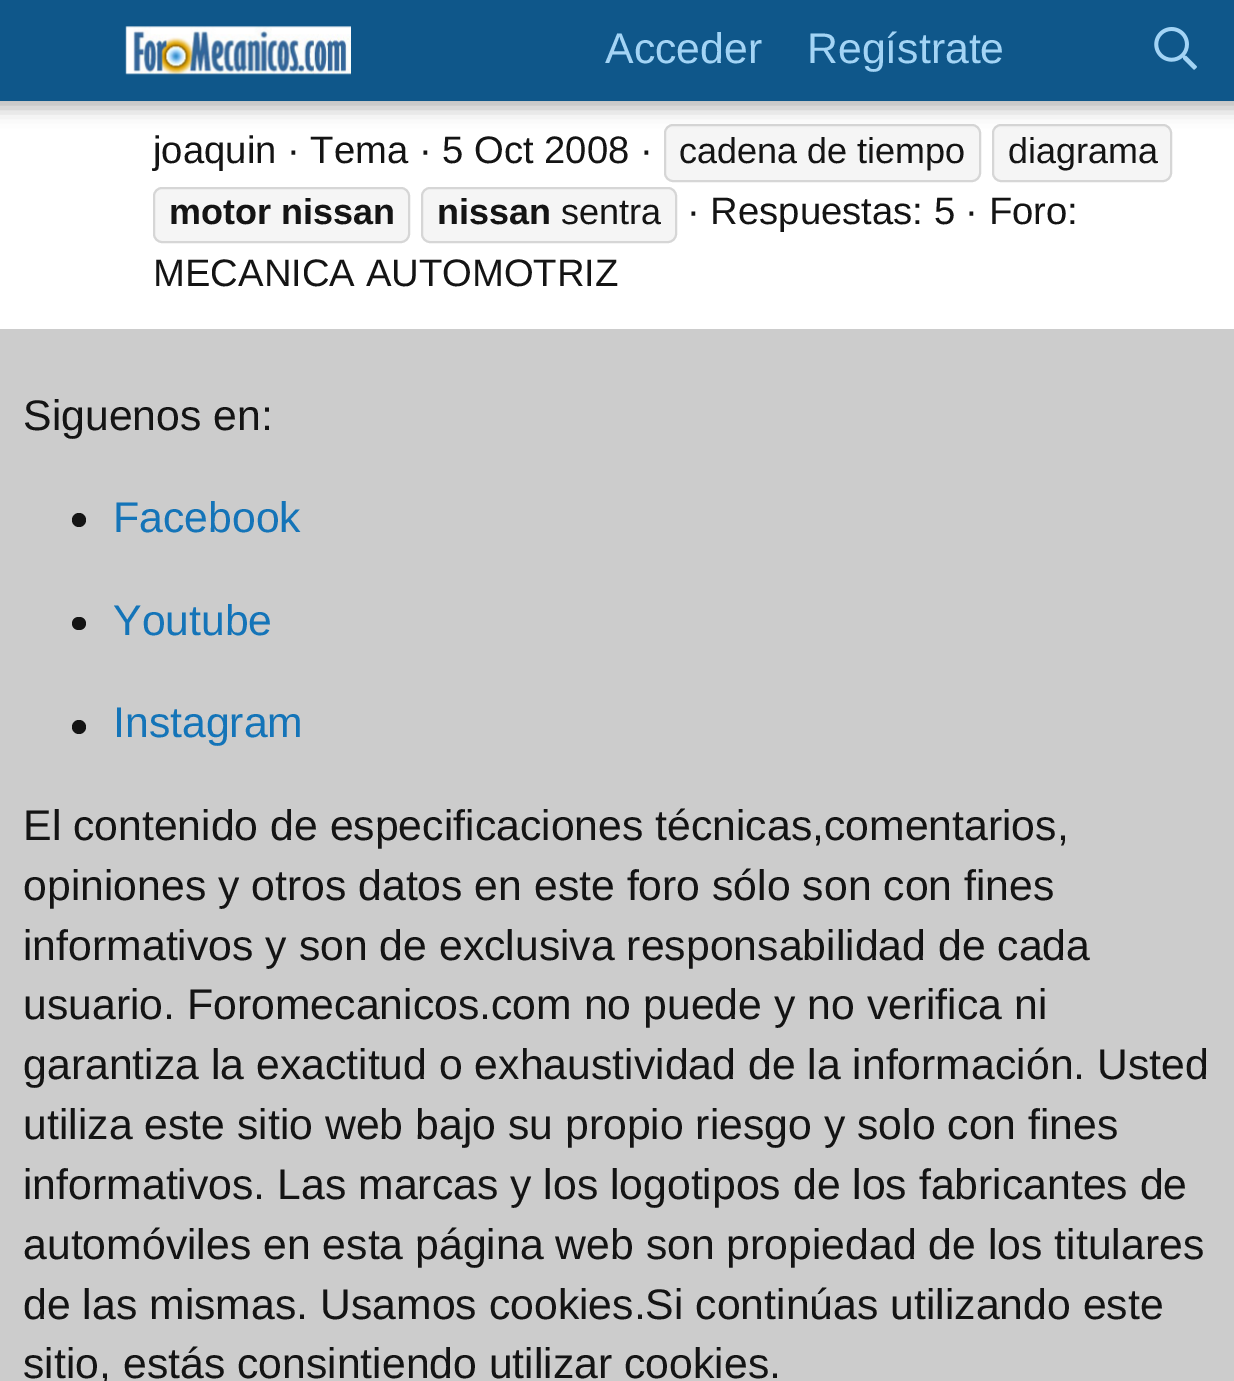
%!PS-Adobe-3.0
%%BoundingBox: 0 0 1234 1381
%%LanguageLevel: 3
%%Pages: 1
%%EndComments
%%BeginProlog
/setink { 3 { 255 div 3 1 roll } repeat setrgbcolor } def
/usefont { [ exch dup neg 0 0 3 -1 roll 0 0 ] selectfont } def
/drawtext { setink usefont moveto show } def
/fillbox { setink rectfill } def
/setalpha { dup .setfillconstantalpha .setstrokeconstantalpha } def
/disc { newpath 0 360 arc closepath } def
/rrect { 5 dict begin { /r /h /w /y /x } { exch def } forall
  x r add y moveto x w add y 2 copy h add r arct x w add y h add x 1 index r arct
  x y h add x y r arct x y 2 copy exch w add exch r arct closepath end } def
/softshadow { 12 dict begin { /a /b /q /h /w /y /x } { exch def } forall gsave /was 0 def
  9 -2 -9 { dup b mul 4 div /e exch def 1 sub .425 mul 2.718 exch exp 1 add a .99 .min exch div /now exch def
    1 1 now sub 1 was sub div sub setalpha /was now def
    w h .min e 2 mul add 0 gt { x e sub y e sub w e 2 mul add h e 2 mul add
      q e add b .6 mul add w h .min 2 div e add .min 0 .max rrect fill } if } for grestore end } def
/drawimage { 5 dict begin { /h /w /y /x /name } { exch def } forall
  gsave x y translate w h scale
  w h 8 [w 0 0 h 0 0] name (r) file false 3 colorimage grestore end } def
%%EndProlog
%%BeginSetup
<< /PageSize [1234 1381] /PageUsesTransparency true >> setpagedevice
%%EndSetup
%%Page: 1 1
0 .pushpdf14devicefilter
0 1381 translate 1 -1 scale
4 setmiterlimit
0 0 1234 1381 204 204 204 fillbox
0 101 1234 228 255 255 255 fillbox
245 245 245 setink
665 125 315 56 8 rrect gsave fill grestore
214 214 214 setink
2 setlinewidth
stroke
245 245 245 setink
993 125 178 56 8 rrect gsave fill grestore
214 214 214 setink
stroke
0 0 0 setink
-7 -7 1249 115 0 9 0.3 softshadow
0 0 1234 101 15 87 138 fillbox
(assets/img1.rgb) 125 26 226 49 drawimage
(Acceder) 605 63 /LiberationSans-Regular 42.75 163 212 245 drawtext
(Regístrate) 807 63 /LiberationSans-Regular 42.75 163 212 245 drawtext
(assets/img2.rgb) 1154 27 43 43 drawimage
(joaquin · Tema · 5 Oct 2008 ·) 153 163 /LiberationSans-Regular 38.25 20 20 20 drawtext
(cadena de tiempo) 679 163 /LiberationSans-Regular 36 20 20 20 drawtext
(diagrama) 1008 163 /LiberationSans-Regular 36 20 20 20 drawtext
245 245 245 setink
154 188 255 54 8 rrect gsave fill grestore
214 214 214 setink
stroke
(motor nissan) 169 224 /LiberationSans-Bold 36 20 20 20 drawtext
245 245 245 setink
422 188 254 54 8 rrect gsave fill grestore
214 214 214 setink
stroke
(nissan) 437 224 /LiberationSans-Bold 36 20 20 20 drawtext
(sentra) 561 224 /LiberationSans-Regular 36 20 20 20 drawtext
(· Respuestas: 5 · Foro:) 687 224 /LiberationSans-Regular 38.25 20 20 20 drawtext
(MECANICA AUTOMOTRIZ) 153 286 /LiberationSans-Regular 38.25 20 20 20 drawtext
(Siguenos en:) 23 430 /LiberationSans-Regular 42.75 20 20 20 drawtext
79 520 7 disc fill
(Facebook) 113 532 /LiberationSans-Regular 42.75 20 116 184 drawtext
20 20 20 setink
72 617 14 13 6.5 rrect fill
(Youtube) 113 635 /LiberationSans-Regular 42.75 20 116 184 drawtext
20 20 20 setink
79 727 7 disc fill
(Instagram) 113 737 /LiberationSans-Regular 42.75 20 116 184 drawtext
(El contenido de especificaciones técnicas,comentarios,) 23 840 /LiberationSans-Regular 42.75 20 20 20 drawtext
(opiniones y otros datos en este foro sólo son con fines) 23 900 /LiberationSans-Regular 42.75 20 20 20 drawtext
(informativos y son de exclusiva responsabilidad de cada) 23 960 /LiberationSans-Regular 42.75 20 20 20 drawtext
(usuario. Foromecanicos.com no puede y no verifica ni) 23 1019 /LiberationSans-Regular 42.75 20 20 20 drawtext
(garantiza la exactitud o exhaustividad de la información. Usted) 23 1079 /LiberationSans-Regular 42.75 20 20 20 drawtext
(utiliza este sitio web bajo su propio riesgo y solo con fines) 23 1139 /LiberationSans-Regular 42.75 20 20 20 drawtext
(informativos. Las marcas y los logotipos de los fabricantes de) 23 1199 /LiberationSans-Regular 42.75 20 20 20 drawtext
(automóviles en esta página web son propiedad de los titulares) 23 1259 /LiberationSans-Regular 42.75 20 20 20 drawtext
(de las mismas. Usamos cookies.Si continúas utilizando este) 23 1319 /LiberationSans-Regular 42.75 20 20 20 drawtext
(sitio, estás consintiendo utilizar cookies.) 23 1378 /LiberationSans-Regular 42.75 20 20 20 drawtext
.poppdf14devicefilter showpage
%%EOF
